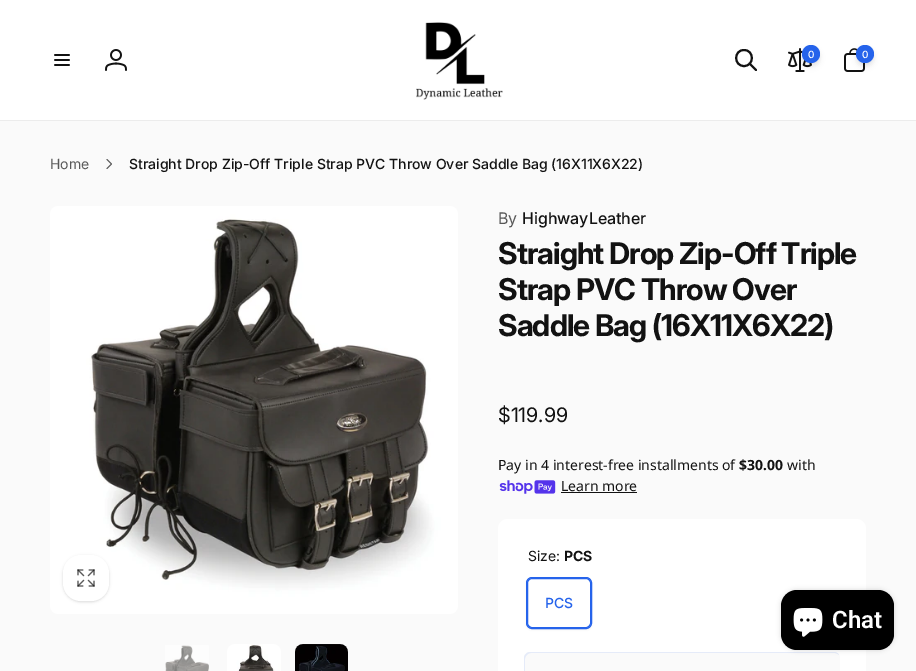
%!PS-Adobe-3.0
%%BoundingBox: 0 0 916 671
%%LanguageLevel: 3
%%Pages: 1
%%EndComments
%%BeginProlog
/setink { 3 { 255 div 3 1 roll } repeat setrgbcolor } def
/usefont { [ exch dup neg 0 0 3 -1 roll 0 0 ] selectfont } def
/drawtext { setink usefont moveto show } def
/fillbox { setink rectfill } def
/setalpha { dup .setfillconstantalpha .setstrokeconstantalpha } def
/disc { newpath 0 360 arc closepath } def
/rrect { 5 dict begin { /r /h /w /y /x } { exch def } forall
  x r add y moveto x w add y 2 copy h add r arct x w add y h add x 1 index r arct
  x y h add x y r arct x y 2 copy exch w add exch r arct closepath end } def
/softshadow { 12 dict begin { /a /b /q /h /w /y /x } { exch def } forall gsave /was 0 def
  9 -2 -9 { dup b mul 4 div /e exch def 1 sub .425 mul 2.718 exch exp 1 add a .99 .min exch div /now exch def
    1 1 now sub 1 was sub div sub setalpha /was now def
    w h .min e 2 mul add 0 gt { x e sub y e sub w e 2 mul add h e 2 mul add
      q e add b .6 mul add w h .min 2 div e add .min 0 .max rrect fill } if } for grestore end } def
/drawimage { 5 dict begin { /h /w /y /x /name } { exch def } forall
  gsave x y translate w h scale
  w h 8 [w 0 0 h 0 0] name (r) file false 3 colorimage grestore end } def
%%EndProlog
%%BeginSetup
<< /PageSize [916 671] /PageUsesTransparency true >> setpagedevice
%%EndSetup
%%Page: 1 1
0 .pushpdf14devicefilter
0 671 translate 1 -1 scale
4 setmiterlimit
0 0 916 671 255 255 255 fillbox
0 120 916 1 236 236 236 fillbox
(assets/img1.rgb) 54 54 16 12 drawimage
(assets/img2.rgb) 105 49 22 22 drawimage
(assets/img3.rgb) 416 22 87 78 drawimage
18 18 18 setink
2 setlinewidth
1 setlinecap
1 setlinejoin
756 70 moveto 749.5 63.5 lineto 744 66 moveto 754.5 66 754.5 50 744 50 curveto 733.5 50 733.5 66 744 66 curveto closepath stroke
(assets/img4.rgb) 788 48 24 24 drawimage
803 48 16 16 8 2 0.06 softshadow
803 50 16 16 8 3 0.1 softshadow
37 99 235 setink
811 54 9 disc fill
(0) 808 58 /Inter-Medium 10 255 255 255 drawtext
(assets/img5.rgb) 844 48 21 24 drawimage
18 18 18 setink
857 48 16 16 8 2 0.06 softshadow
857 50 16 16 8 3 0.1 softshadow
37 99 235 setink
865 54 9 disc fill
(0) 862 58 /Inter-Medium 10 255 255 255 drawtext
0 121 916 550 250 250 250 fillbox
(Home) 50 169 /Inter-Regular 14 88 88 88 drawtext
1 setlinewidth
107 159.5 moveto 111.5 164 lineto 107 168.5 lineto stroke
(Straight Drop Zip-Off Triple Strap PVC Throw Over Saddle Bag \(16X11X6X22\)) 129 169 /Inter-Medium 14 18 18 18 drawtext
(assets/img6.rgb) 50 206 408 408 drawimage
63 556 46 46 18 1 0.06 softshadow
63 556 46 46 18 1.5 0.1 softshadow
255 255 255 setink
63 555 46 46 18 rrect fill
(assets/img7.rgb) 77 569 18 18 drawimage
(assets/img8.rgb) 165 645 44 26 drawimage
(assets/img9.rgb) 227 644 54 27 drawimage
(assets/img10.rgb) 295 644 53 27 drawimage
(By) 498 224 /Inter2-Regular 16 88 88 88 drawtext
(HighwayLeather) 522 224 /Inter2-Medium 16 18 18 18 drawtext
/Inter-Bold 30 usefont
498 264 moveto -0.9 0 (Straight Drop Zip-Off Triple) ashow
498 300 moveto -0.9 0 (Strap PVC Throw Over) ashow
498 336 moveto -0.9 0 (Saddle Bag \(16X11X6X22\)) ashow
($119.99) 498 422 /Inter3-Regular 20 18 18 18 drawtext
(Pay in 4 interest-free installments of) 498 470 /NotoSans-Regular 14 18 18 18 drawtext
($30.00) 739 470 /NotoSans-Bold 14 18 18 18 drawtext
(with) 787 470 /NotoSans-Regular 14 18 18 18 drawtext
(assets/img11.rgb) 499 480 57 14 drawimage
(Learn more) 561 491 /NotoSans-Regular 14 18 18 18 drawtext
561 492 76 1 18 18 18 fillbox
255 255 255 setink
498 519 368 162 10 rrect fill
(Size:) 528 561 /Inter-Regular 14 18 18 18 drawtext
(PCS) 564 561 /Inter2-Bold 14 18 18 18 drawtext
526 578 66 52 6 1 0.05 softshadow
255 255 255 setink
526.5 577.5 65 51 5.5 rrect gsave fill grestore
37 99 235 setink
0 setlinecap
0 setlinejoin
stroke
527.5 578.5 63 49 4.5 rrect stroke
(PCS) 545 608 /Inter-Medium 14 37 99 235 drawtext
250 250 250 setink
524 652 316 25 6 rrect fill
229 235 249 setink
531 653 moveto 835 653 lineto 836 653 838 654 839 655 curveto 838 653 836 652 834 652 curveto 530 652 lineto 527 652 524 655 524 658 curveto 524 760 lineto 524 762 525 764 527 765 curveto 526 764 525 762 525 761 curveto 525 659 lineto 525 656 528 653 531 653 curveto closepath fill
0 0 0 setink
781 590 113 60 16 2.5 0.15 softshadow
781 590 113 60 16 rrect fill
(assets/img12.rgb) 793 608 30 29 drawimage
(Chat) 832 628 /Roboto-SemiBold 24 255 255 255 drawtext
.poppdf14devicefilter showpage
%%EOF
